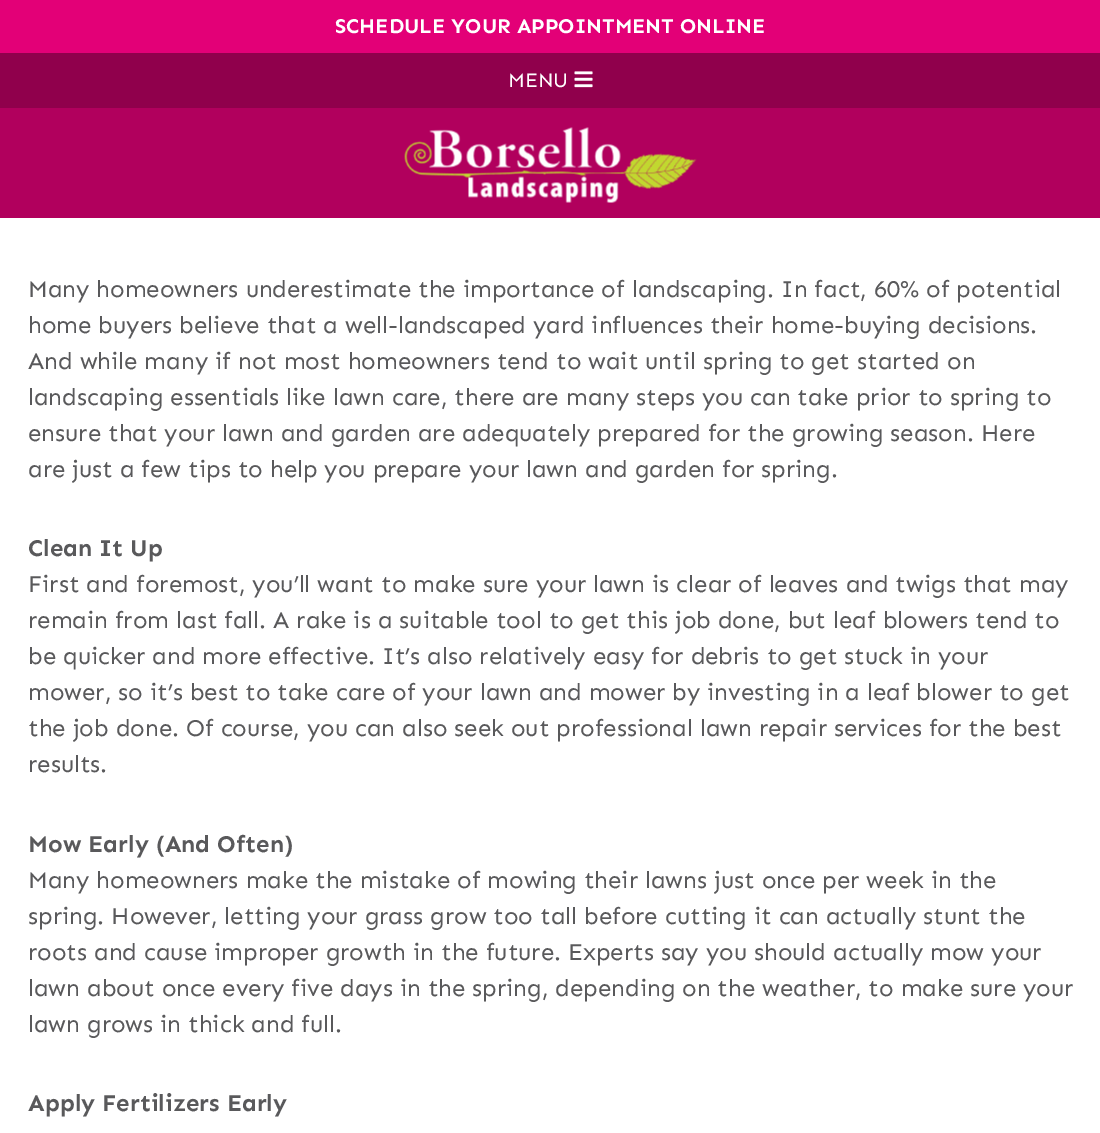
%!PS-Adobe-3.0
%%BoundingBox: 0 0 1100 1133
%%LanguageLevel: 3
%%Pages: 1
%%EndComments
%%BeginProlog
/setink { 3 { 255 div 3 1 roll } repeat setrgbcolor } def
/usefont { [ exch dup neg 0 0 3 -1 roll 0 0 ] selectfont } def
/drawtext { setink usefont moveto show } def
/fillbox { setink rectfill } def
/drawimage { 5 dict begin { /h /w /y /x /name } { exch def } forall
  gsave x y translate w h scale
  w h 8 [w 0 0 h 0 0] name (r) file false 3 colorimage grestore end } def
%%EndProlog
%%BeginSetup
<< /PageSize [1100 1133] >> setpagedevice
%%EndSetup
%%Page: 1 1
0 1133 translate 1 -1 scale
4 setmiterlimit
0 0 1100 1133 255 255 255 fillbox
0 0 1100 53 227 0 119 fillbox
(SCHEDULE YOUR APPOINTMENT ONLINE) 335 33 /Sen-Bold 21 255 255 255 drawtext
0 108 1100 110 177 0 93 fillbox
0 53 1100 55 144 0 76 fillbox
(MENU) 508 87 /Sen-Regular 20.5 255 255 255 drawtext
(assets/img1.rgb) 574 71 19 17 drawimage
(assets/img2.rgb) 404 127 293 76 drawimage
(Many homeowners underestimate the importance of landscaping. In fact, 60% of potential) 28 297 /Sen-Regular 24 89 89 91 drawtext
(home buyers believe that a well-landscaped yard influences their home-buying decisions.) 28 333 /Sen-Regular 24 89 89 91 drawtext
(And while many if not most homeowners tend to wait until spring to get started on) 28 369 /Sen-Regular 24 89 89 91 drawtext
(landscaping essentials like lawn care, there are many steps you can take prior to spring to) 28 405 /Sen-Regular 24 89 89 91 drawtext
(ensure that your lawn and garden are adequately prepared for the growing season. Here) 28 441 /Sen-Regular 24 89 89 91 drawtext
(are just a few tips to help you prepare your lawn and garden for spring.) 28 477 /Sen-Regular 24 89 89 91 drawtext
(Clean It Up) 28 556 /Sen-Bold 24 89 89 91 drawtext
(First and foremost, you’ll want to make sure your lawn is clear of leaves and twigs that may) 28 592 /Sen-Regular 24 89 89 91 drawtext
(remain from last fall. A rake is a suitable tool to get this job done, but leaf blowers tend to) 28 628 /Sen-Regular 24 89 89 91 drawtext
(be quicker and more effective. It’s also relatively easy for debris to get stuck in your) 28 664 /Sen-Regular 24 89 89 91 drawtext
(mower, so it’s best to take care of your lawn and mower by investing in a leaf blower to get) 28 700 /Sen-Regular 24 89 89 91 drawtext
(the job done. Of course, you can also seek out professional lawn repair services for the best) 28 736 /Sen-Regular 24 89 89 91 drawtext
(results.) 28 772 /Sen-Regular 24 89 89 91 drawtext
(Mow Early \(And Often\)) 28 852 /Sen-Bold 24 89 89 91 drawtext
(Many homeowners make the mistake of mowing their lawns just once per week in the) 28 888 /Sen-Regular 24 89 89 91 drawtext
(spring. However, letting your grass grow too tall before cutting it can actually stunt the) 28 924 /Sen-Regular 24 89 89 91 drawtext
(roots and cause improper growth in the future. Experts say you should actually mow your) 28 960 /Sen-Regular 24 89 89 91 drawtext
(lawn about once every five days in the spring, depending on the weather, to make sure your) 28 996 /Sen-Regular 24 89 89 91 drawtext
(lawn grows in thick and full.) 28 1032 /Sen-Regular 24 89 89 91 drawtext
(Apply Fertilizers Early) 28 1111 /Sen-Bold 24 89 89 91 drawtext
showpage
%%EOF
